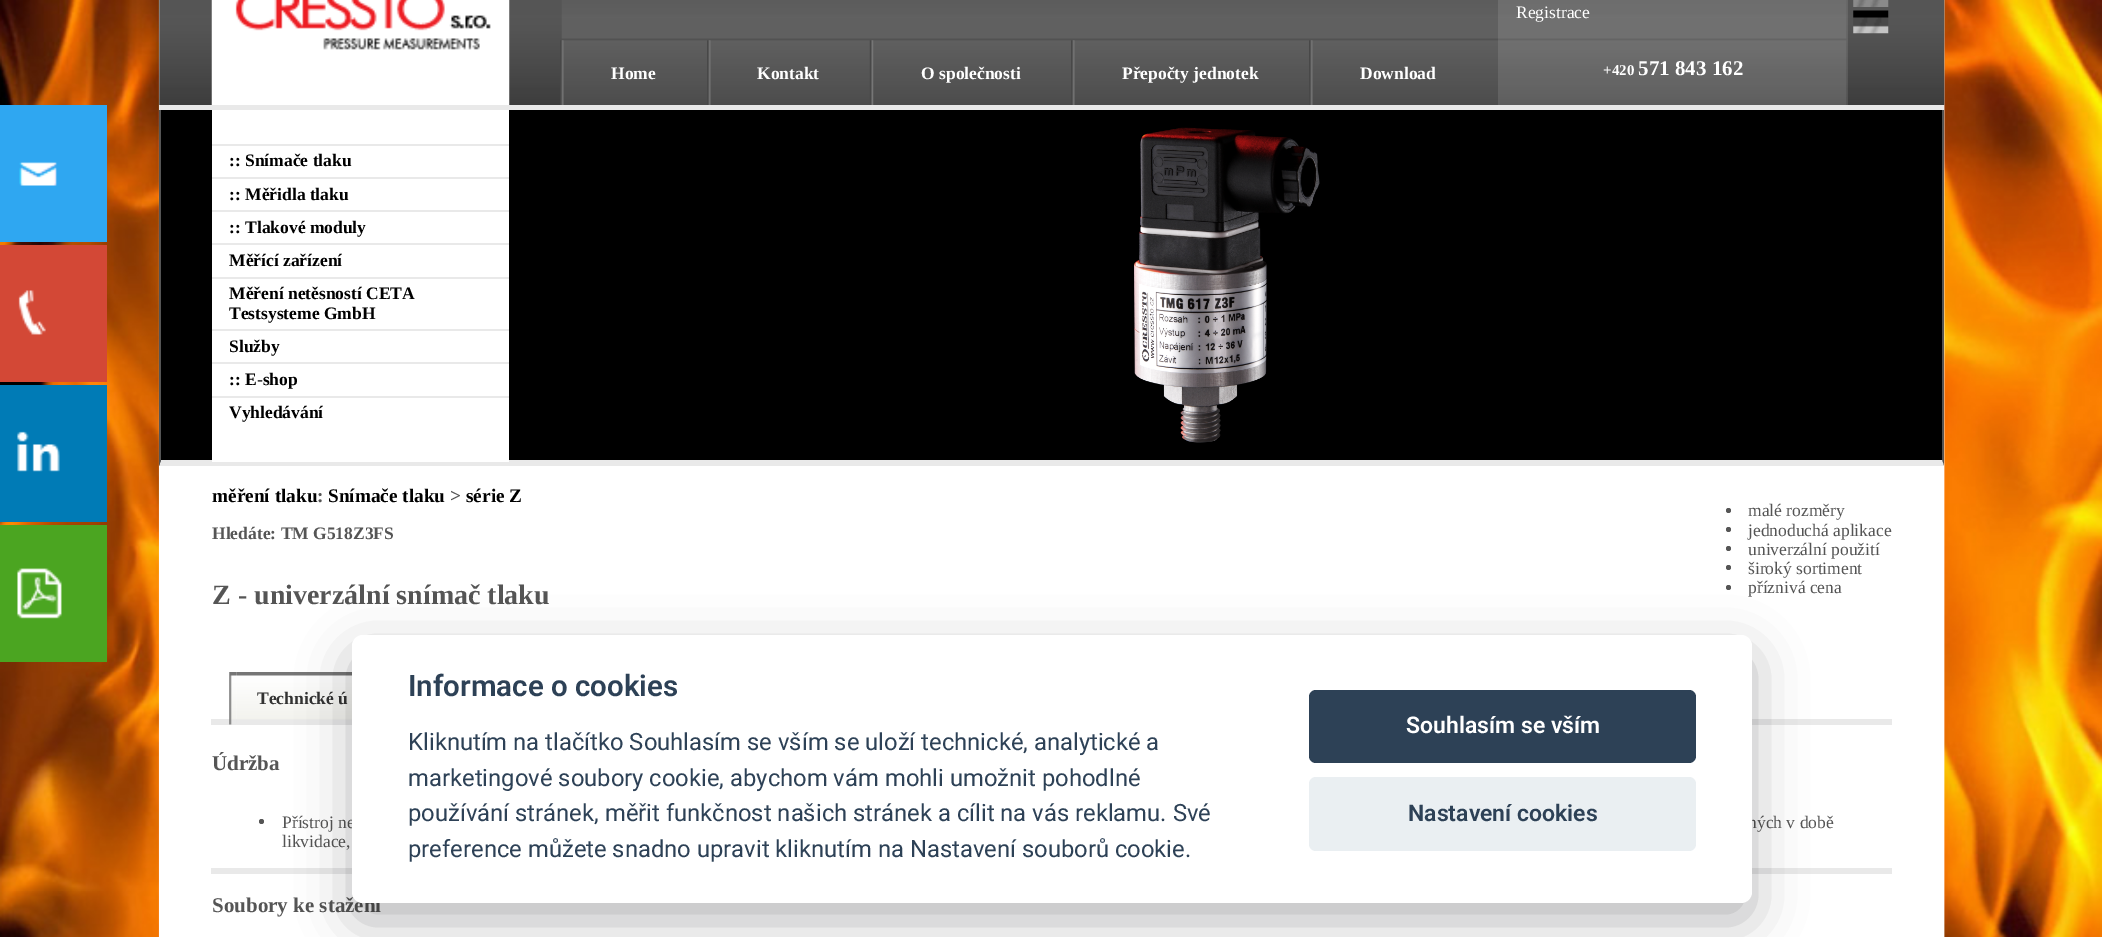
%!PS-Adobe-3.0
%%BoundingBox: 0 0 2102 937
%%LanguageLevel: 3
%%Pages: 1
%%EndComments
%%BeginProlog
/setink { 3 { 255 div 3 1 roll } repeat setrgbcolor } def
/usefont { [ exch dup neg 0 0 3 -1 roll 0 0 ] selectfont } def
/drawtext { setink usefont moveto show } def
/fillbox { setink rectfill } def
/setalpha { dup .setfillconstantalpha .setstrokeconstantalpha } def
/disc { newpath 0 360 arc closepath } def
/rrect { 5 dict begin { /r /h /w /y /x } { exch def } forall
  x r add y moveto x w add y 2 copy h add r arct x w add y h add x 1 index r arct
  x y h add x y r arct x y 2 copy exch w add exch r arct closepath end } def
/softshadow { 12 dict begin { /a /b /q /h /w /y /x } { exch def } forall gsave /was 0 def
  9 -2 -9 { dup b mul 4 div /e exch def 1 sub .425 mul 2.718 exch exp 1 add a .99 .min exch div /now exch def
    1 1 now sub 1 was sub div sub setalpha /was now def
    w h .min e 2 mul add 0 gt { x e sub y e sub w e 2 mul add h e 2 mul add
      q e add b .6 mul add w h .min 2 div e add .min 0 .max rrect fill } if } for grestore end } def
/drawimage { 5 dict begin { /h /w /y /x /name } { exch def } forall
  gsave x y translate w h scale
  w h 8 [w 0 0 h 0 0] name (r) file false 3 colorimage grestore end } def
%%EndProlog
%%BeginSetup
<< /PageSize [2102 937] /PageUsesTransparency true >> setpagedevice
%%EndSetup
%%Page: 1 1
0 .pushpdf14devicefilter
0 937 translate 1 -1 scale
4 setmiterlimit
0 0 2102 937 255 255 255 fillbox
(assets/img1.rgb) 0 0 2102 937 drawimage
0 105 107 137 47 167 241 fillbox
(assets/img2.rgb) 19 162 38 24 drawimage
0 245 107 137 211 72 54 fillbox
(assets/img3.rgb) 18 290 28 45 drawimage
0 385 107 137 0 123 182 fillbox
(assets/img4.rgb) 17 431 43 41 drawimage
0 525 107 137 75 165 33 fillbox
(assets/img5.rgb) 17 568 45 51 drawimage
159 0 1785 937 255 255 255 fillbox
(assets/img6.rgb) 159 0 1786 105 drawimage
159 105 1785 5 233 233 233 fillbox
(assets/img7.rgb) 211 0 299 105 drawimage
(assets/img8.rgb) 561 0 1286 105 drawimage
(assets/img9.rgb) 560 40 4 65 drawimage
(Home) 611 79 /LiberationSerif-Bold 17.5 255 255 255 drawtext
(assets/img10.rgb) 707 40 4 65 drawimage
(Kontakt) 757 79 /LiberationSerif-Bold 17.5 255 255 255 drawtext
(assets/img11.rgb) 869 40 5 65 drawimage
(O společnosti) 921 79 /LiberationSerif-Bold 17.5 255 255 255 drawtext
(assets/img10.rgb) 1071 40 4 65 drawimage
(Přepočty jednotek) 1122 79 /LiberationSerif-Bold 17.5 255 255 255 drawtext
(assets/img10.rgb) 1309 40 4 65 drawimage
(Download) 1360 79 /LiberationSerif-Bold 17.5 255 255 255 drawtext
0.1 setalpha
1498 0 350 105 255 255 255 fillbox
1 setalpha
(Registrace) 1516 18 /LiberationSerif-Regular 17.5 255 255 255 drawtext
(+420) 1603 75 /LiberationSerif-Bold 15 255 255 255 drawtext
(571 843 162) 1638 75 /LiberationSerif-Bold 21 255 255 255 drawtext
(assets/img12.rgb) 1853 0 36 7 drawimage
(assets/img13.rgb) 1853 10 36 24 drawimage
159 110 1785 356 0 0 0 fillbox
85 85 85 setink
1944 110 moveto 1944 466 lineto 1942 460 lineto 1942 110 lineto closepath fill
233 233 233 setink
1944 466 moveto 159 466 lineto 161 460 lineto 1942 460 lineto closepath fill
85 85 85 setink
159 466 moveto 159 110 lineto 161 110 lineto 161 460 lineto closepath fill
(assets/img14.rgb) 1134 127 186 316 drawimage
212 110 297 352 255 255 255 fillbox
212 144 297 2 233 233 233 fillbox
(:: Snímače tlaku) 229 166 /LiberationSerif-Bold 17.5 0 0 0 drawtext
212 177 297 2 233 233 233 fillbox
(:: Měřidla tlaku) 229 200 /LiberationSerif-Bold 17.5 0 0 0 drawtext
212 210 297 2 233 233 233 fillbox
(:: Tlakové moduly) 229 233 /LiberationSerif-Bold 17.5 0 0 0 drawtext
212 243 297 2 233 233 233 fillbox
(Měřící zařízení) 229 266 /LiberationSerif-Bold 17.5 0 0 0 drawtext
212 277 297 2 233 233 233 fillbox
(Měření netěsností CETA) 229 299 /LiberationSerif-Bold 17.5 0 0 0 drawtext
(Testsysteme GmbH) 229 319 /LiberationSerif-Bold 17.5 0 0 0 drawtext
212 329 297 2 233 233 233 fillbox
(Služby) 229 352 /LiberationSerif-Bold 17.5 0 0 0 drawtext
212 362 297 2 233 233 233 fillbox
(:: E-shop) 229 385 /LiberationSerif-Bold 17.5 0 0 0 drawtext
212 396 297 2 233 233 233 fillbox
(Vyhledávání) 229 418 /LiberationSerif-Bold 17.5 0 0 0 drawtext
(měření tlaku) 212 502 /LiberationSerif-Bold 19.25 0 0 0 drawtext
(:) 317 502 /LiberationSerif-Bold 19.25 85 85 85 drawtext
(Snímače tlaku) 328 502 /LiberationSerif-Bold 19.25 0 0 0 drawtext
(>) 450 502 /LiberationSerif-Bold 19.25 85 85 85 drawtext
(série Z) 466 502 /LiberationSerif-Bold 19.25 0 0 0 drawtext
(Hledáte: TM G518Z3FS) 212 539 /LiberationSerif-Bold 17.5 85 85 85 drawtext
1728.5 510.5 2.5 disc fill
(malé rozměry) 1748 516 /LiberationSerif-Regular 17.5 85 85 85 drawtext
1728.5 529.5 2.5 disc fill
(jednoduchá aplikace) 1748 536 /LiberationSerif-Regular 17.5 85 85 85 drawtext
1728.5 548.5 2.5 disc fill
(univerzální použití) 1748 555 /LiberationSerif-Regular 17.5 85 85 85 drawtext
1728.5 567.5 2.5 disc fill
(široký sortiment) 1748 574 /LiberationSerif-Regular 17.5 85 85 85 drawtext
1728.5 587.5 2.5 disc fill
(příznivá cena) 1748 593 /LiberationSerif-Regular 17.5 85 85 85 drawtext
(Z - univerzální snímač tlaku) 212 604 /LiberationSerif-Bold 28 85 85 85 drawtext
211 719 1681 6 233 233 233 fillbox
(assets/img15.rgb) 229 672 8 53 drawimage
(assets/img16.rgb) 236 672 116 53 drawimage
(Technické ú) 257 704 /LiberationSerif-Bold 17.5 51 51 51 drawtext
(Údržba) 212 770 /LiberationSerif-Bold 21 85 85 85 drawtext
261.5 821.5 2.5 disc fill
(Přístroj ne) 282 828 /LiberationSerif-Regular 17.5 85 85 85 drawtext
(ných v době) 1748 828 /LiberationSerif-Regular 17.5 85 85 85 drawtext
(likvidace,) 282 847 /LiberationSerif-Regular 17.5 85 85 85 drawtext
211 868 1681 6 233 233 233 fillbox
(Soubory ke stažení) 212 912 /LiberationSerif-Bold 21 85 85 85 drawtext
2 2 3 setink
352 653 1400 268 11 26 0.28 softshadow
255 255 255 setink
352 635 1400 268 11 rrect fill
(Informace o cookies) 408 696 /Roboto-SemiBold 29.5 45 65 86 drawtext
(Kliknutím na tlačítko Souhlasím se vším se uloží technické, analytické a) 408 750 /Roboto-Regular 23.8 45 65 86 drawtext
(marketingové soubory cookie, abychom vám mohli umožnit pohodlné) 408 786 /Roboto-Regular 23.8 45 65 86 drawtext
(používání stránek, měřit funkčnost našich stránek a cílit na vás reklamu. Své) 408 821 /Roboto-Regular 23.8 45 65 86 drawtext
(preference můžete snadno upravit kliknutím na Nastavení souborů cookie.) 408 857 /Roboto-Regular 23.8 45 65 86 drawtext
1309 690 387 73 7 rrect fill
(Souhlasím se vším) 1406 733 /Roboto-SemiBold 23 255 255 255 drawtext
234 239 242 setink
1309 777 387 74 7 rrect fill
(Nastavení cookies) 1408 821 /Roboto-SemiBold 23 45 65 86 drawtext
.poppdf14devicefilter showpage
%%EOF
